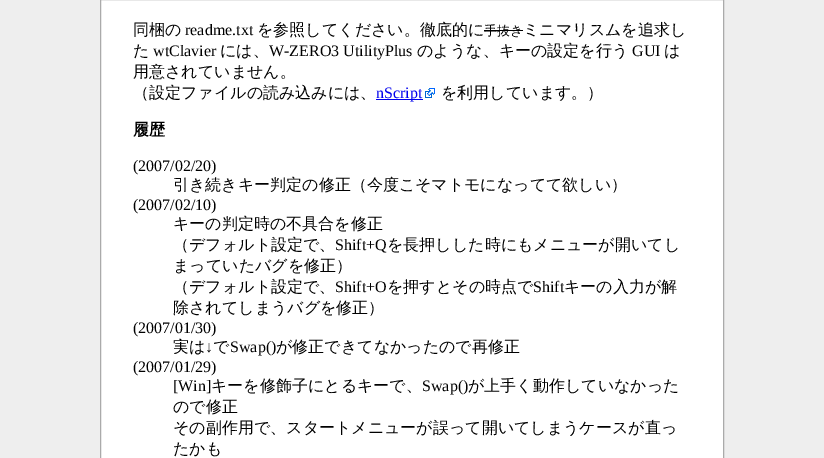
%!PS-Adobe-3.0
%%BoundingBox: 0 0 824 458
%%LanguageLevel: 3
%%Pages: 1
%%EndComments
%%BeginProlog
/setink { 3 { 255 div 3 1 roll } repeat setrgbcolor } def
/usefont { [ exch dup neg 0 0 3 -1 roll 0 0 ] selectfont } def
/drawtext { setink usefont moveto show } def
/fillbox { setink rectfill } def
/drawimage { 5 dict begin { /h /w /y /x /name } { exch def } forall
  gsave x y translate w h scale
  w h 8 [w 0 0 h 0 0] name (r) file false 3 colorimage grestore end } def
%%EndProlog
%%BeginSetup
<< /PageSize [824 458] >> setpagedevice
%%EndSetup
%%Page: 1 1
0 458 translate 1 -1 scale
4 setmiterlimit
0 0 824 458 238 238 238 fillbox
255 255 255 setink
100.5 -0.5 moveto 723.5 -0.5 lineto 723.5 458.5 lineto 100.5 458.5 lineto closepath gsave fill grestore
170 170 170 setink
stroke
(同梱の) 133 35 /WenQuanYiZenHei-Medium 16 0 0 0 drawtext
(readme.txt) 185 35 /LiberationSerif-Regular 16 0 0 0 drawtext
(を参照してください。徹底的に) 257 35 /WenQuanYiZenHei-Medium 16 0 0 0 drawtext
(手抜き) 484 35 /WenQuanYiZenHei-Medium 13 0 0 0 drawtext
484 30 39 1 0 0 0 fillbox
(ミニマリスムを追求し) 523 35 /WenQuanYiZenHei-Medium 16 0 0 0 drawtext
(た) 133 56 /WenQuanYiZenHei-Medium 16 0 0 0 drawtext
(wtClavier) 153 56 /LiberationSerif-Regular 16 0 0 0 drawtext
(には、) 220 56 /WenQuanYiZenHei-Medium 16 0 0 0 drawtext
(W-ZERO3 UtilityPlus) 269 56 /LiberationSerif-Regular 16 0 0 0 drawtext
(のような、キーの設定を行う) 417 56 /WenQuanYiZenHei-Medium 16 0 0 0 drawtext
(GUI) 632 56 /LiberationSerif-Regular 16 0 0 0 drawtext
(は) 664 56 /WenQuanYiZenHei-Medium 16 0 0 0 drawtext
(用意されていません。) 133 77 /WenQuanYiZenHei-Medium 16 0 0 0 drawtext
(（設定ファイルの読み込みには、) 133 98 /WenQuanYiZenHei-Medium 16 0 0 0 drawtext
376 99 47 1 0 0 238 fillbox
(nScript) 376 98 /LiberationSerif-Regular 16 0 0 238 drawtext
(assets/img1.rgb) 425 88 10 10 drawimage
(を利用しています。）) 441 98 /WenQuanYiZenHei-Medium 16 0 0 0 drawtext
(履歴) 133 135 /WenQuanYiZenHei-Bold 16 0 0 0 drawtext
(\(2007/02/20\)) 133 171 /LiberationSerif-Regular 16 0 0 0 drawtext
(引き続きキー判定の修正（今度こそマトモになってて欲しい）) 173 190 /WenQuanYiZenHei-Medium 16 0 0 0 drawtext
(\(2007/02/10\)) 133 210 /LiberationSerif-Regular 16 0 0 0 drawtext
(キーの判定時の不具合を修正) 173 229 /WenQuanYiZenHei-Medium 16 0 0 0 drawtext
(（デフォルト設定で、) 173 250 /WenQuanYiZenHei-Medium 16 0 0 0 drawtext
(Shift+Q) 335 250 /LiberationSerif-Regular 16 0 0 0 drawtext
(を長押しした時にもメニューが開いてし) 387 250 /WenQuanYiZenHei-Medium 16 0 0 0 drawtext
(まっていたバグを修正）) 173 271 /WenQuanYiZenHei-Medium 16 0 0 0 drawtext
(（デフォルト設定で、) 173 292 /WenQuanYiZenHei-Medium 16 0 0 0 drawtext
(Shift+O) 335 292 /LiberationSerif-Regular 16 0 0 0 drawtext
(を押すとその時点で) 387 292 /WenQuanYiZenHei-Medium 16 0 0 0 drawtext
(Shift) 533 292 /LiberationSerif-Regular 16 0 0 0 drawtext
(キーの入力が解) 564 292 /WenQuanYiZenHei-Medium 16 0 0 0 drawtext
(除されてしまうバグを修正）) 173 313 /WenQuanYiZenHei-Medium 16 0 0 0 drawtext
(\(2007/01/30\)) 133 333 /LiberationSerif-Regular 16 0 0 0 drawtext
(実は) 173 352 /WenQuanYiZenHei-Medium 16 0 0 0 drawtext
(↓) 205 352 /LiberationSerif-Regular 16 0 0 0 drawtext
(で) 213 352 /WenQuanYiZenHei-Medium 16 0 0 0 drawtext
(Swap\(\)) 230 352 /LiberationSerif-Regular 16 0 0 0 drawtext
(が修正できてなかったので再修正) 276 352 /WenQuanYiZenHei-Medium 16 0 0 0 drawtext
(\(2007/01/29\)) 133 372 /LiberationSerif-Regular 16 0 0 0 drawtext
([Win]) 173 391 /LiberationSerif-Regular 16 0 0 0 drawtext
(キーを修飾子にとるキーで、) 211 391 /WenQuanYiZenHei-Medium 16 0 0 0 drawtext
(Swap\(\)) 422 391 /LiberationSerif-Regular 16 0 0 0 drawtext
(が上手く動作していなかった) 468 391 /WenQuanYiZenHei-Medium 16 0 0 0 drawtext
(ので修正) 173 412 /WenQuanYiZenHei-Medium 16 0 0 0 drawtext
(その副作用で、スタートメニューが誤って開いてしまうケースが直っ) 173 433 /WenQuanYiZenHei-Medium 16 0 0 0 drawtext
(たかも) 173 454 /WenQuanYiZenHei-Medium 16 0 0 0 drawtext
showpage
%%EOF
